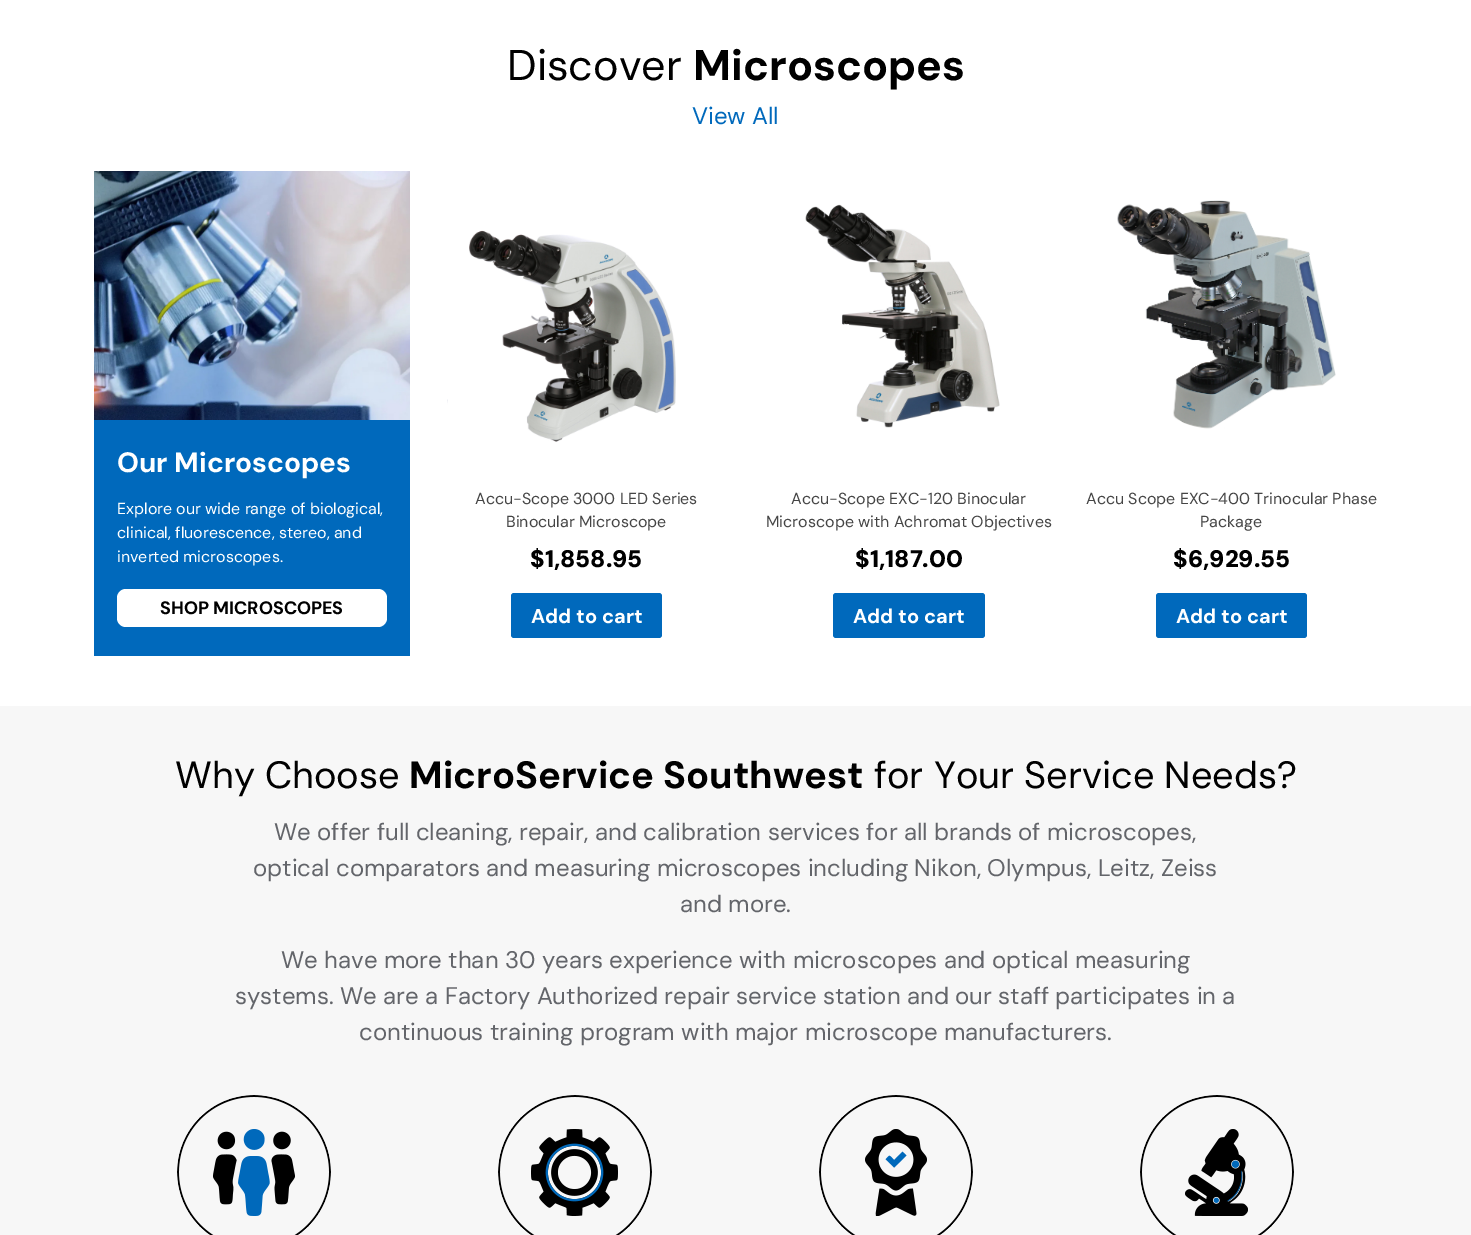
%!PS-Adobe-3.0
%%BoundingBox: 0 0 1471 1235
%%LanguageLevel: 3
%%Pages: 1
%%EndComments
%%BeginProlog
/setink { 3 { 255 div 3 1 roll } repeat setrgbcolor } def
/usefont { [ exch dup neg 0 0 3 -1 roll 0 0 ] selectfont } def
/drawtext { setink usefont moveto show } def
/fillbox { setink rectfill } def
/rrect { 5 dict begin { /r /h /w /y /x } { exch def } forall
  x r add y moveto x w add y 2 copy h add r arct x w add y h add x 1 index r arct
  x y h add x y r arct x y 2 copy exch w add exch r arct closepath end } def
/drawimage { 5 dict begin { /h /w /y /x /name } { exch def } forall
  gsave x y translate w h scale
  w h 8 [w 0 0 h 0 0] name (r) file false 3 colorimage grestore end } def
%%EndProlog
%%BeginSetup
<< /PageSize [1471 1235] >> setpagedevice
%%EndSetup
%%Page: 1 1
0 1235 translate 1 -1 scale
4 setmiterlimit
0 0 1471 1235 255 255 255 fillbox
(Discover) 507 80 /DMSans-Regular 43 0 0 0 drawtext
(Microscopes) 693 80 /DMSans-Bold 43 0 0 0 drawtext
(View All) 692 124 /DMSans-Regular 24 0 105 188 drawtext
(assets/img1.rgb) 94 171 316 249 drawimage
94 420 316 236 0 105 188 fillbox
(Our Microscopes) 117 472 /DMSans-Bold 28 255 255 255 drawtext
(Explore our wide range of biological,) 117 514 /DMSans-Regular 16 255 255 255 drawtext
(clinical, fluorescence, stereo, and) 117 538 /DMSans-Regular 16 255 255 255 drawtext
(inverted microscopes.) 117 562 /DMSans-Regular 16 255 255 255 drawtext
117 589 270 38 9 rrect fill
(SHOP MICROSCOPES) 160 614 /DMSans-Bold 18 0 0 0 drawtext
(assets/img2.rgb) 447 230 229 212 drawimage
(Accu-Scope 3000 LED Series) 475 504 /DMSans-Regular 16 69 69 69 drawtext
(Binocular Microscope) 506 527 /DMSans-Regular 16 69 69 69 drawtext
($1,858.95) 530 567 /DMSans-Black 24 0 0 0 drawtext
0 105 188 setink
511 593 151 45 3 rrect fill
(Add to cart) 531 623 /DMSans-Bold 20 255 255 255 drawtext
(assets/img3.rgb) 805 204 195 224 drawimage
(Accu-Scope EXC-120 Binocular) 791 504 /DMSans-Regular 16 69 69 69 drawtext
(Microscope with Achromat Objectives) 766 527 /DMSans-Regular 16 69 69 69 drawtext
($1,187.00) 855 567 /DMSans-Black 24 0 0 0 drawtext
0 105 188 setink
833 593 152 45 3 rrect fill
(Add to cart) 853 623 /DMSans-Bold 20 255 255 255 drawtext
(assets/img4.rgb) 1117 200 219 229 drawimage
(Accu Scope EXC-400 Trinocular Phase) 1086 504 /DMSans-Regular 16 69 69 69 drawtext
(Package) 1200 527 /DMSans-Regular 16 69 69 69 drawtext
($6,929.55) 1173 567 /DMSans-Black 24 0 0 0 drawtext
0 105 188 setink
1156 593 151 45 3 rrect fill
(Add to cart) 1176 623 /DMSans-Bold 20 255 255 255 drawtext
0 706 1471 529 247 247 247 fillbox
(Why Choose) 175 788 /DMSans-Regular 38 0 0 0 drawtext
(MicroService Southwest) 409 788 /DMSans-Bold 38 0 0 0 drawtext
(for Your Service Needs?) 874 788 /DMSans-Regular 38 0 0 0 drawtext
(We offer full cleaning, repair, and calibration services for all brands of microscopes,) 274 840 /DMSans-Regular 24 99 101 106 drawtext
(optical comparators and measuring microscopes including Nikon, Olympus, Leitz, Zeiss) 253 876 /DMSans-Regular 24 99 101 106 drawtext
(and more.) 680 912 /DMSans-Regular 24 99 101 106 drawtext
(We have more than 30 years experience with microscopes and optical measuring) 281 968 /DMSans-Regular 24 99 101 106 drawtext
(systems. We are a Factory Authorized repair service station and our staff participates in a) 235 1004 /DMSans-Regular 24 99 101 106 drawtext
(continuous training program with major microscope manufacturers.) 359 1040 /DMSans-Regular 24 99 101 106 drawtext
(assets/img5.rgb) 177 1095 154 140 drawimage
(assets/img6.rgb) 498 1095 154 140 drawimage
(assets/img7.rgb) 819 1095 154 140 drawimage
(assets/img8.rgb) 1140 1095 154 140 drawimage
showpage
%%EOF
